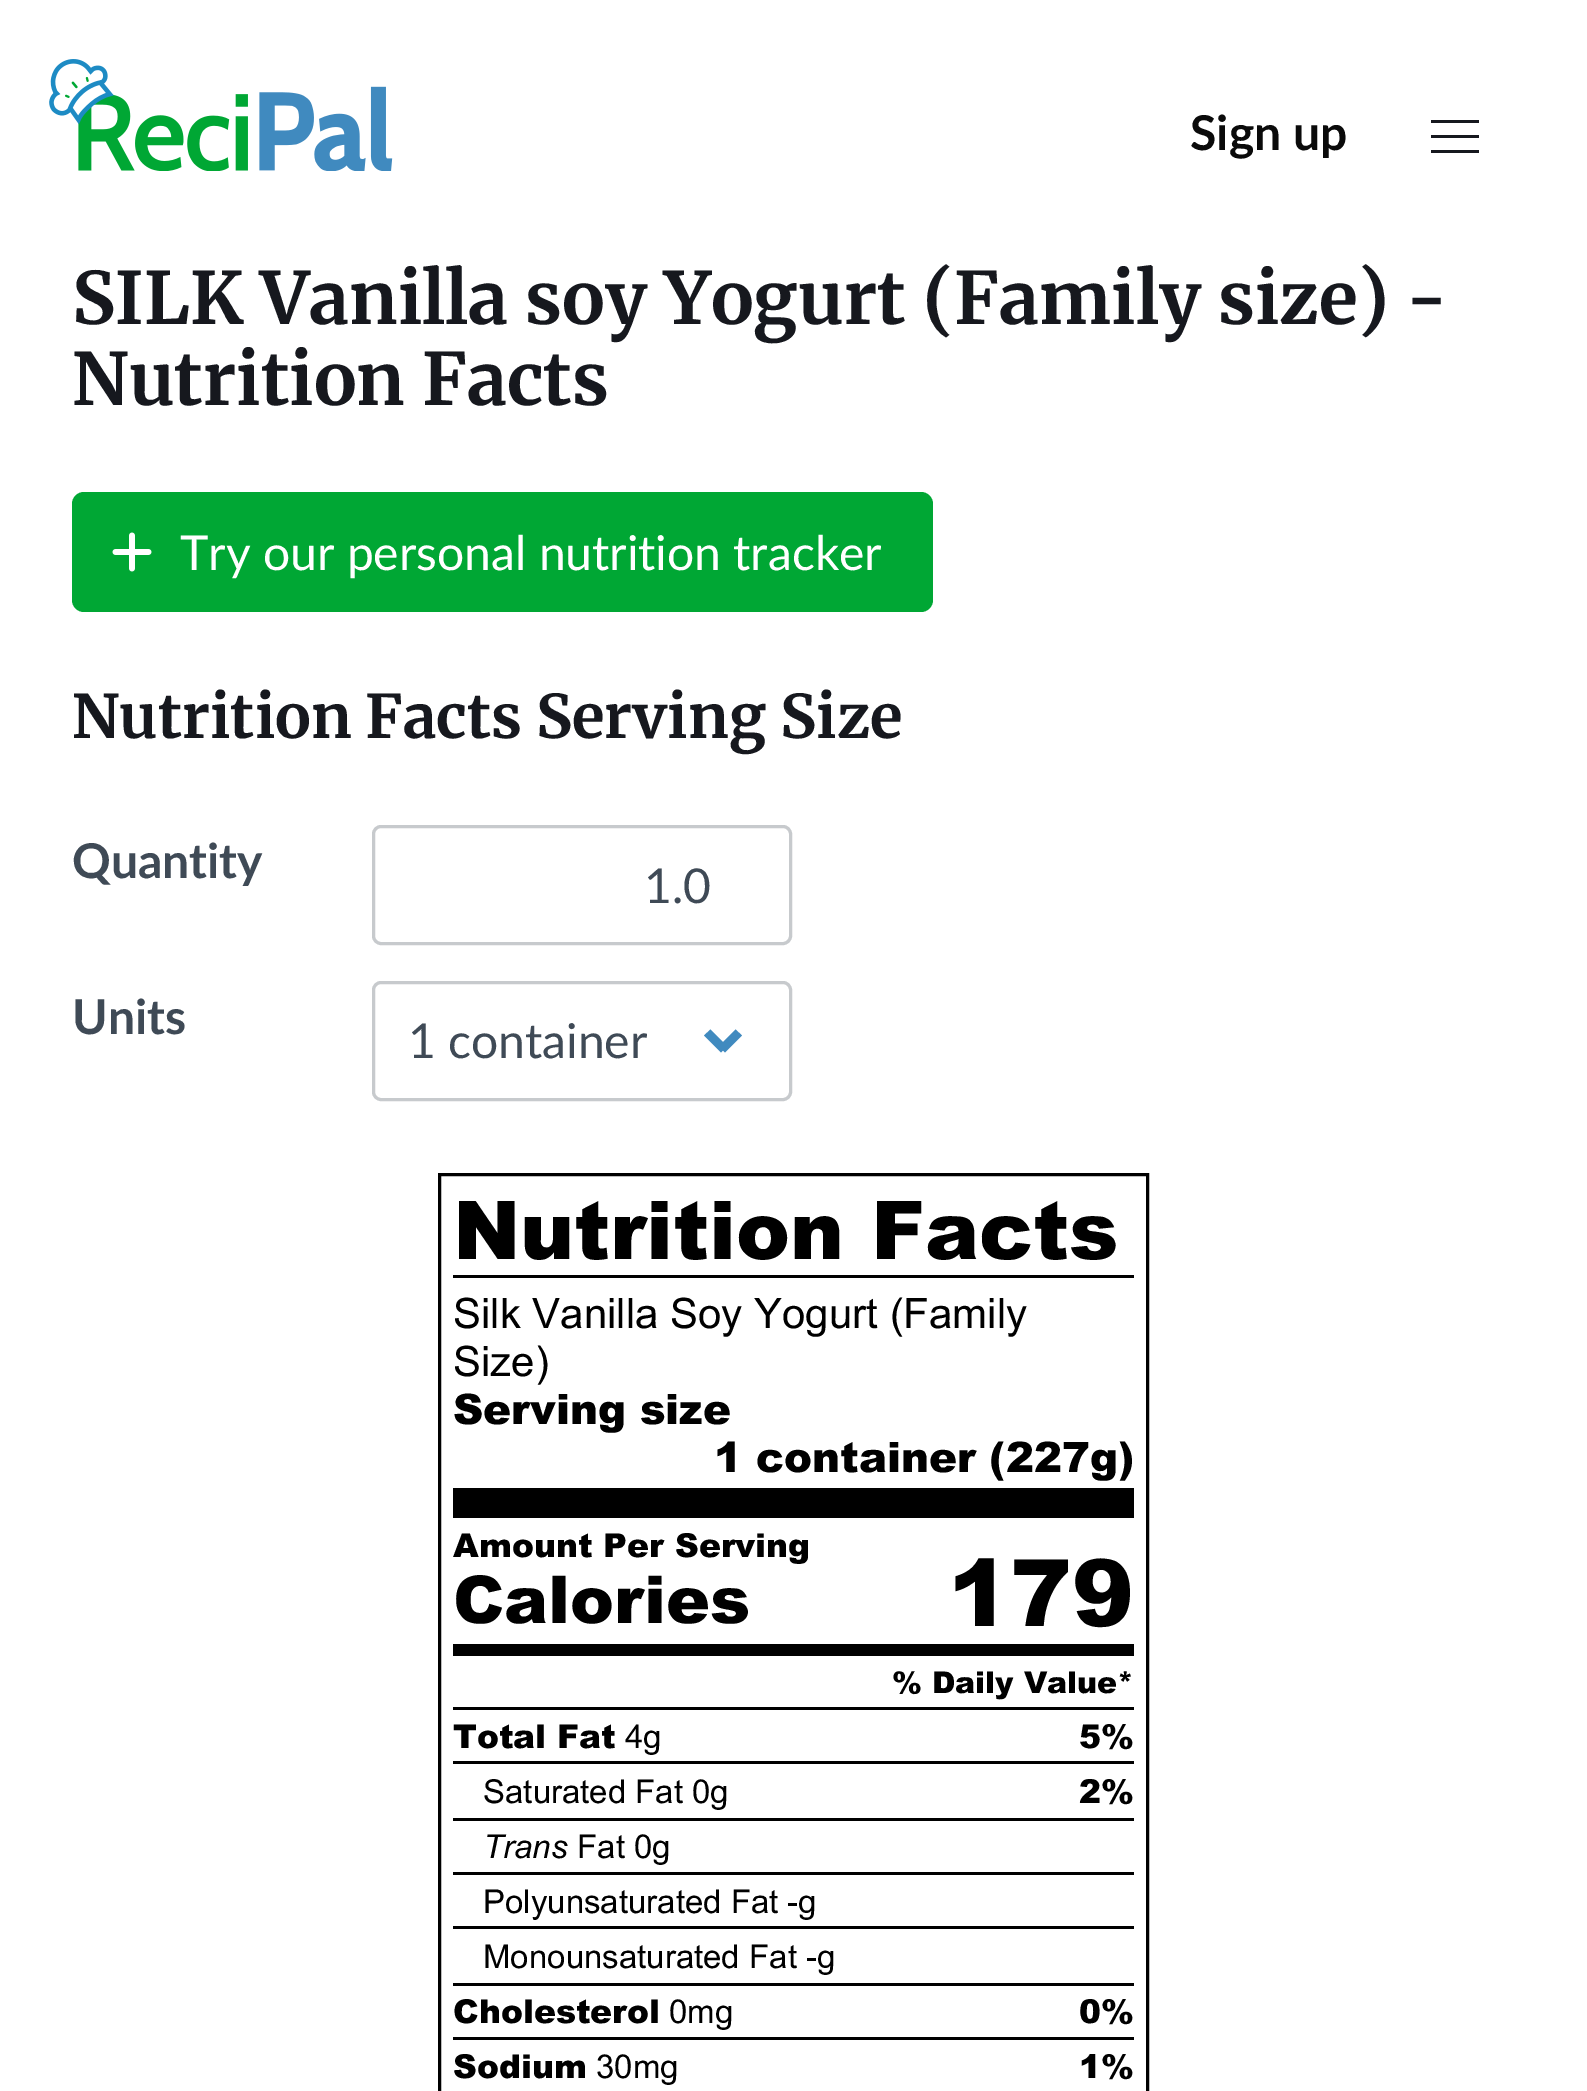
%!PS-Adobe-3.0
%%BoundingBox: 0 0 1587 2091
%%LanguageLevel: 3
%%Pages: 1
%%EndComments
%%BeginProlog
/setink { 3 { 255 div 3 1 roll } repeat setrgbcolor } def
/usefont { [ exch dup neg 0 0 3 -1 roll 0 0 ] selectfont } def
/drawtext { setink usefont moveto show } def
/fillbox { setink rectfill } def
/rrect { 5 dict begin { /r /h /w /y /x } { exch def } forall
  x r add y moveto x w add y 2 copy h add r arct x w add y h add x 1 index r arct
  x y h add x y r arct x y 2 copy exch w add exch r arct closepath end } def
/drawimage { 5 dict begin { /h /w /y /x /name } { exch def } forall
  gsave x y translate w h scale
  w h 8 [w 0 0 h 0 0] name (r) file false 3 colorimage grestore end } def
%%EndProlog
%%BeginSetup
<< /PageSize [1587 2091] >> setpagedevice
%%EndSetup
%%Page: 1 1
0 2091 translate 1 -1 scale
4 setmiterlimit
0 0 1587 2091 255 255 255 fillbox
(assets/img1.rgb) 49 59 344 112 drawimage
(Sign up) 1190 150 /Lato-Bold 48 10 10 10 drawtext
1431 120 48 3 22 24 30 fillbox
1431 135 48 3 22 24 30 fillbox
1431 150 48 3 22 24 30 fillbox
(SILK Vanilla soy Yogurt \(Family size\) -) 72 324 /Merriweather-Bold 72 22 24 30 drawtext
(Nutrition Facts) 72 405 /Merriweather-Bold 72 22 24 30 drawtext
0 167 52 setink
72 492 861 120 12 rrect fill
(assets/img2.rgb) 112 532 40 40 drawimage
(Try our personal nutrition tracker) 180 570 /Lato-Regular 48 255 255 255 drawtext
/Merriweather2-Bold 60 usefont
22 24 30 setink
72 738 moveto -0.5 0 32 (Nutrition Facts Serving Size) widthshow
(Quantity) 72 878 /Lato-Bold 48 63 74 86 drawtext
199 202 205 setink
3 setlinewidth
373.5 826.5 417 117 7.5 rrect stroke
(1.0) 644 903 /Lato-Regular 48 63 74 86 drawtext
(Units) 72 1034 /Lato-Bold 48 63 74 86 drawtext
199 202 205 setink
373.5 982.5 417 117 7.5 rrect stroke
(1 container) 408 1058 /Lato-Regular 48 63 74 86 drawtext
64 138 191 setink
719 1046 moveto 735.5 1029.5 lineto 742 1035.5 lineto 725 1052.5 lineto closepath fill
704 1035.5 moveto 710.5 1029.5 lineto 727 1046 lineto 721 1052.5 lineto closepath fill
0 0 0 setink
439.5 1174.5 708 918 rectstroke
(Nutrition Facts) 453 1259 /Arial-Black 81 0 0 0 drawtext
453 1275 681 3 0 0 0 fillbox
(Silk Vanilla Soy Yogurt \(Family) 453 1328 /Arial-Regular 42 0 0 0 drawtext
(Size\)) 453 1376 /Arial-Regular 42 0 0 0 drawtext
(Serving size) 453 1424 /Arial-Black 42 0 0 0 drawtext
(1 container \(227g\)) 714 1472 /Arial-Black 42 0 0 0 drawtext
453 1488 681 30 0 0 0 fillbox
(Amount Per Serving) 453 1557 /Arial-Black 33 0 0 0 drawtext
(Calories) 453 1623 /Arial-Black 66 0 0 0 drawtext
(179) 948 1626 /Arial-Black 93 0 0 0 drawtext
453 1644 681 12 0 0 0 fillbox
(% Daily Value*) 892 1693 /Arial-Black 30 0 0 0 drawtext
453 1707 681 3 0 0 0 fillbox
(Total Fat) 453 1748 /Arial-Black 33 0 0 0 drawtext
(4g) 625 1748 /Arial-Regular 33 0 0 0 drawtext
(5%) 1079 1748 /Arial-Black 33 0 0 0 drawtext
453 1761 681 3 0 0 0 fillbox
(Saturated Fat 0g) 483 1803 /Arial-Regular 33 0 0 0 drawtext
(2%) 1079 1803 /Arial-Black 33 0 0 0 drawtext
453 1818 681 3 0 0 0 fillbox
(Trans) 483 1858 /Arial-Italic 33 0 0 0 drawtext
(Fat 0g) 577 1858 /Arial-Regular 33 0 0 0 drawtext
453 1872 681 3 0 0 0 fillbox
(Polyunsaturated Fat -g) 483 1913 /Arial-Regular 33 0 0 0 drawtext
453 1926 681 3 0 0 0 fillbox
(Monounsaturated Fat -g) 483 1968 /Arial-Regular 33 0 0 0 drawtext
453 1983 681 3 0 0 0 fillbox
(Cholesterol) 453 2023 /Arial-Black 33 0 0 0 drawtext
(0mg) 669 2023 /Arial-Regular 33 0 0 0 drawtext
(0%) 1079 2023 /Arial-Black 33 0 0 0 drawtext
453 2037 681 3 0 0 0 fillbox
(Sodium) 453 2078 /Arial-Black 33 0 0 0 drawtext
(30mg) 596 2078 /Arial-Regular 33 0 0 0 drawtext
(1%) 1079 2078 /Arial-Black 33 0 0 0 drawtext
showpage
%%EOF
